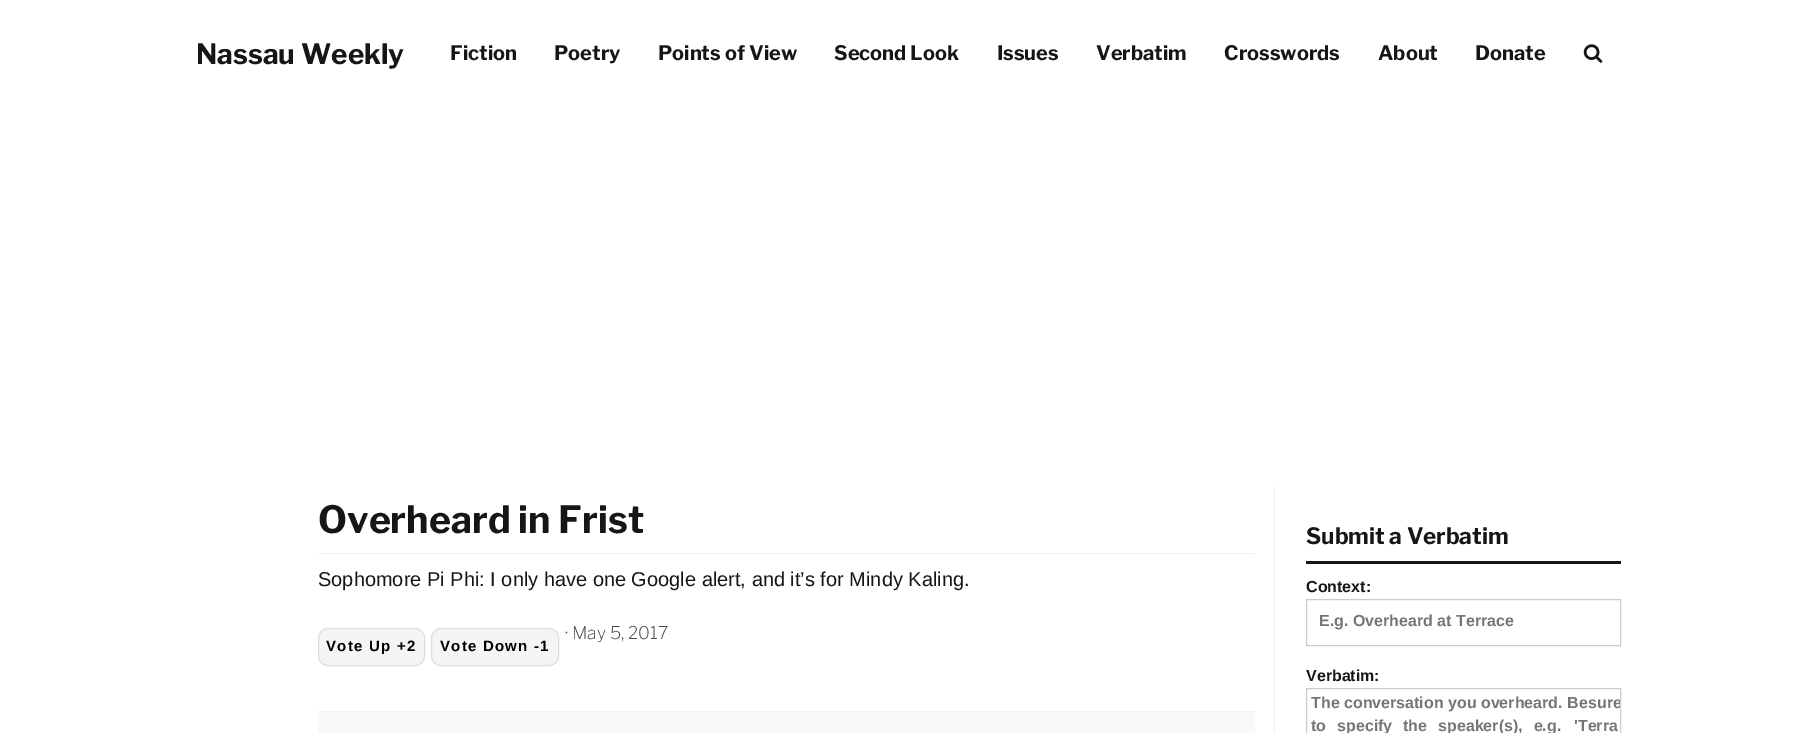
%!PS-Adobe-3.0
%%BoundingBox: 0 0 1816 733
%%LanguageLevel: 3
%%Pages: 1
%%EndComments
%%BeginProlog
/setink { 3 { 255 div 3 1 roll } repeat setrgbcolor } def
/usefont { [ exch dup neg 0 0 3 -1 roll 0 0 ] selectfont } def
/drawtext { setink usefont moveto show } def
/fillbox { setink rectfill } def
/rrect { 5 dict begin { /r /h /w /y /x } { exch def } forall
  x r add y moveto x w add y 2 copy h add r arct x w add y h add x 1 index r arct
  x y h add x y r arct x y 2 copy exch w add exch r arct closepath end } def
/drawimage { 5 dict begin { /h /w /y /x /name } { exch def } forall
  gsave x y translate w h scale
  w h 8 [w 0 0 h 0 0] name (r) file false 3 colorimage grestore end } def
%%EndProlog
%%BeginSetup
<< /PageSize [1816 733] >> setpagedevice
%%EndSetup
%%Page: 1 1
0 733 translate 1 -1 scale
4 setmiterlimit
0 0 1816 733 255 255 255 fillbox
(Nassau Weekly) 196 64 /LibreFranklin-Bold 28 22 22 22 drawtext
(Fiction) 450 60 /LibreFranklin-Bold 20 22 22 22 drawtext
(Poetry) 554 60 /LibreFranklin-Bold 20 22 22 22 drawtext
(Points of View) 658 60 /LibreFranklin-Bold 20 22 22 22 drawtext
(Second Look) 834 60 /LibreFranklin-Bold 20 22 22 22 drawtext
(Issues) 997 60 /LibreFranklin-Bold 20 22 22 22 drawtext
(Verbatim) 1096 60 /LibreFranklin-Bold 20 22 22 22 drawtext
(Crosswords) 1224 60 /LibreFranklin-Bold 20 22 22 22 drawtext
(About) 1378 60 /LibreFranklin-Bold 20 22 22 22 drawtext
(Donate) 1475 60 /LibreFranklin-Bold 20 22 22 22 drawtext
(assets/img1.rgb) 1583 44 20 19 drawimage
(Overheard in Frist) 318 533 /LibreFranklin-Bold 37.5 22 22 22 drawtext
318 553 937 1 238 238 238 fillbox
(Sophomore Pi Phi: I only have one Google alert, and it’s for Mindy Kaling.) 318 586 /LiberationSans-Regular 20 22 22 22 drawtext
(· May 5, 2017) 565 639 /LibreFranklin-ExtraLight 17.5 69 69 69 drawtext
245 245 245 setink
318.5 628.5 106 37 9.5 rrect gsave fill grestore
221 221 221 setink
stroke
/LiberationSans-Bold 15 usefont
0 0 0 setink
326 651 moveto 1.25 0 (Vote Up +2) ashow
245 245 245 setink
431.5 628.5 127 37 9.5 rrect gsave fill grestore
221 221 221 setink
stroke
0 0 0 setink
440 651 moveto 1.25 0 (Vote Down -1) ashow
318 712 937 21 248 248 248 fillbox
318 711 937 1 243 243 243 fillbox
1274 486 1 247 238 238 238 fillbox
1306 561 315 3 22 22 22 fillbox
(Submit a Verbatim) 1306 544 /LibreFranklin-Bold 22.5 22 22 22 drawtext
(Context:) 1306 592 /LiberationSans-Bold 16 22 22 22 drawtext
204 204 204 setink
1306.5 599.5 314 46 rectstroke
(E.g. Overheard at Terrace) 1319 626 /LiberationSans-Bold 16 117 117 117 drawtext
(Verbatim:) 1306 681 /LiberationSans-Bold 16 22 22 22 drawtext
204 204 204 setink
1306.5 688.5 314 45 rectstroke
(The conversation you overheard. Be) 1311 708 /LiberationSans-Bold 16 117 117 117 drawtext
gsave
1308 689 312 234 rectclip
(sure) 1588 708 /LiberationSans-Bold 16 117 117 117 drawtext
grestore
1311 731 moveto 6.5 0 32 (to specify the speaker\(s\), e.g.) widthshow
('Terra) 1574 731 /LiberationSans-Bold 16 117 117 117 drawtext
showpage
%%EOF
